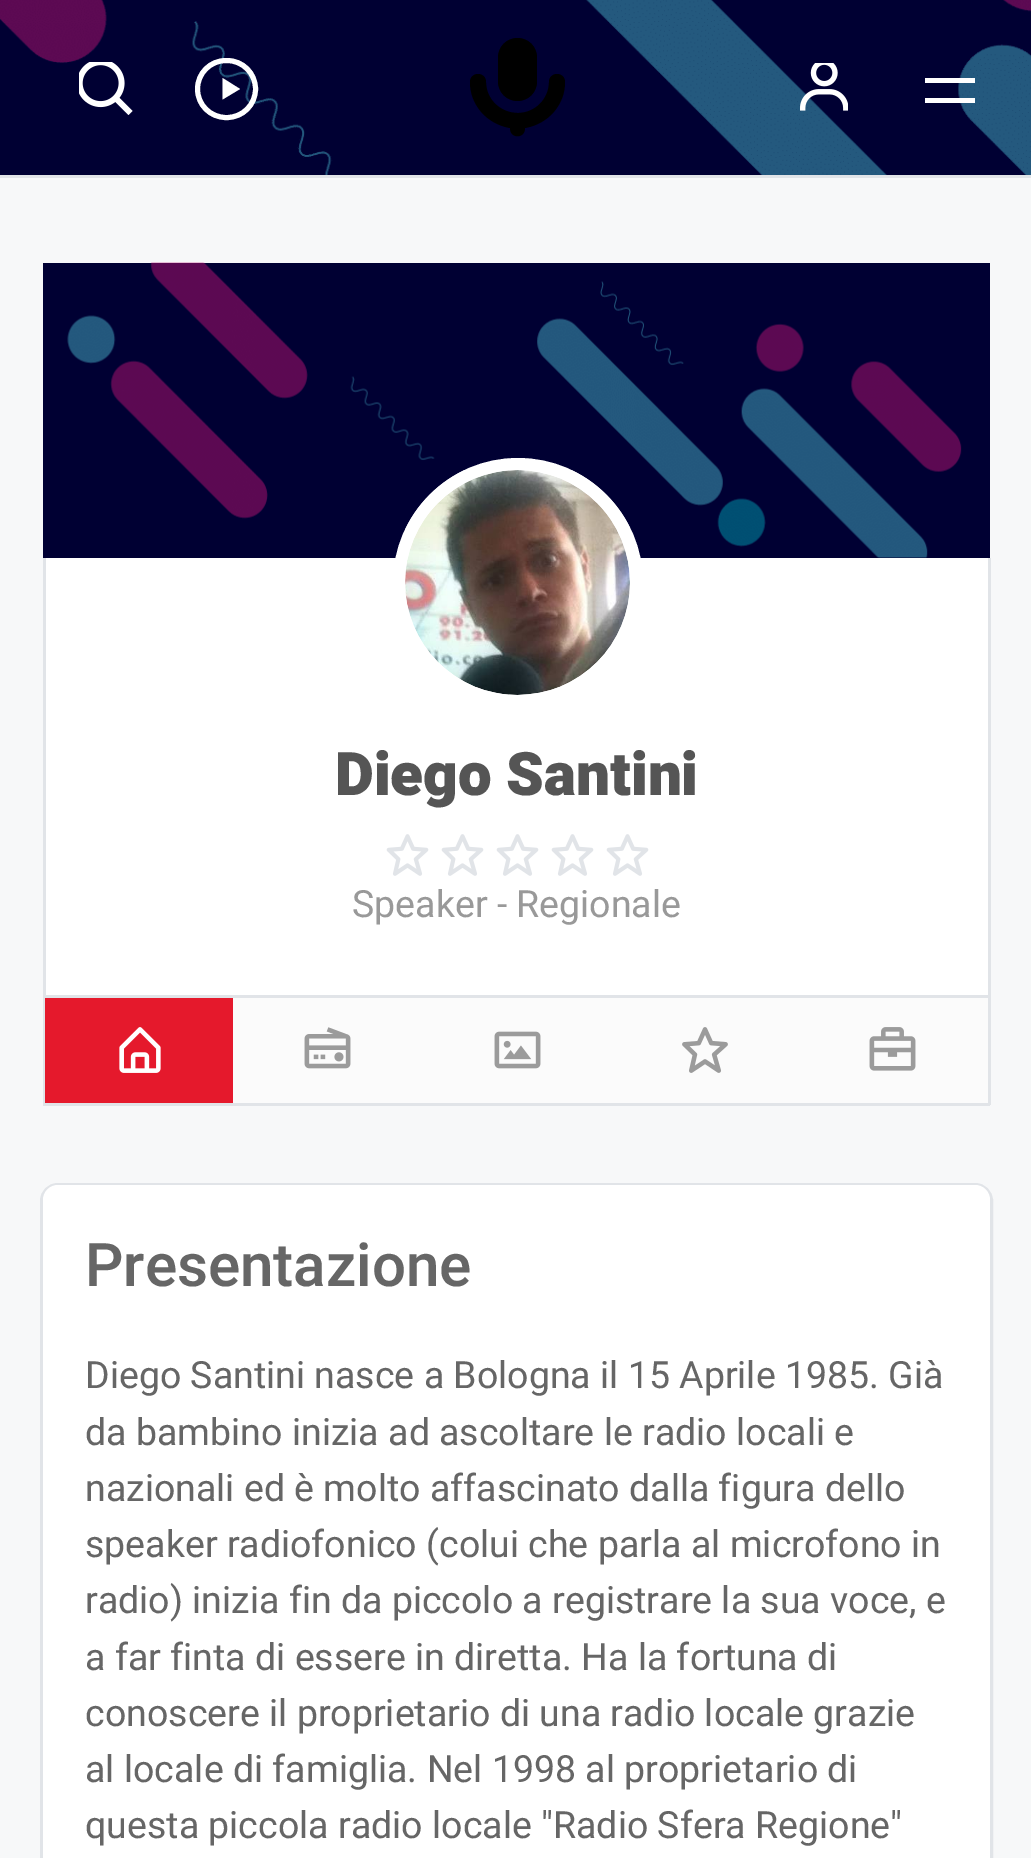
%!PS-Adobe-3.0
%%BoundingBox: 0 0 1031 1858
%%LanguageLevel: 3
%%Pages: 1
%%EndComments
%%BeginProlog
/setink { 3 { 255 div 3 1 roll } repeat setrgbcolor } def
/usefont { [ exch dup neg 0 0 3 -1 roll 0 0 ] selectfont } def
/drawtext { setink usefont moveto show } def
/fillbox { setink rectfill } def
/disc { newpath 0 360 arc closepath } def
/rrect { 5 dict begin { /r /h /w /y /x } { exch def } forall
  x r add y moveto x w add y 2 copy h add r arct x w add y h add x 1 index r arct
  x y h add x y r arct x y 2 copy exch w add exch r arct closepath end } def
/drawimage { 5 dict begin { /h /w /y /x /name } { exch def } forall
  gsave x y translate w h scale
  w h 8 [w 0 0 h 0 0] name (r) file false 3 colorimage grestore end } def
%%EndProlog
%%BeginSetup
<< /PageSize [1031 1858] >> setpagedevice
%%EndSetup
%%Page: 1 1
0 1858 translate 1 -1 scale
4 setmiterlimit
0 0 1031 1858 247 248 249 fillbox
0 0 1031 175 0 0 51 fillbox
(assets/img1.rgb) 0 0 1031 175 drawimage
(assets/img2.rgb) 79 62 54 53 drawimage
255 255 255 setink
5 setlinewidth
197.5 60.5 58 57 28.5 rrect stroke
222.5 78 moveto 222.5 99.5 lineto 240 89 lineto closepath fill
0 0 0 setink
498 38 39 63 19.5 rrect fill
565 82 moveto 565 77 561 74 557 74 curveto 553 74 549 77 549 82 curveto 549 99 535 113 518 113 curveto 500 113 486 99 486 82 curveto 486 77 482 74 478 74 curveto 474 74 470 77 470 82 curveto 470 105 487 124 510 128 curveto 510 139 525 139 525 128 curveto 548 124 565 105 565 82 curveto closepath fill
(assets/img3.rgb) 800 63 48 48 drawimage
925 78 50 5 255 255 255 fillbox
925 98 50 5 255 255 255 fillbox
0 175 1031 3 225 228 232 fillbox
43 263 947 295 0 0 51 fillbox
(assets/img4.rgb) 67 262 895 296 drawimage
233 998 755 105 251 251 251 fillbox
988 558 3 547 225 228 232 fillbox
43 1103 947 3 225 228 232 fillbox
43 998 3 107 225 228 232 fillbox
45 998 188 105 229 25 44 fillbox
(assets/img5.rgb) 119 1027 42 46 drawimage
(assets/img6.rgb) 304 1027 47 42 drawimage
(assets/img7.rgb) 494 1031 47 38 drawimage
(assets/img8.rgb) 682 1027 46 46 drawimage
(assets/img9.rgb) 869 1027 47 44 drawimage
46 558 942 437 255 255 255 fillbox
43 995 947 3 225 228 232 fillbox
43 558 3 440 225 228 232 fillbox
255 255 255 setink
518 583 118.5 disc gsave fill grestore
13 setlinewidth
stroke
(assets/img10.rgb) 405 470 225 225 drawimage
(Diego Santini) 335 795 /Heebo-Black 60 85 85 85 drawtext
(assets/img11.rgb) 386 834 43 42 drawimage
(assets/img11.rgb) 441 834 43 42 drawimage
(assets/img11.rgb) 496 834 43 42 drawimage
(assets/img11.rgb) 551 834 43 42 drawimage
(assets/img11.rgb) 606 834 43 42 drawimage
(Speaker - Regionale) 352 917 /Heebo-Regular 37.5 153 153 153 drawtext
225 228 232 setink
3 setlinewidth
41.5 1184.5 950 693 16.5 rrect stroke
255 255 255 setink
43 1185 947 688 15 rrect fill
(Presentazione) 85 1286 /Heebo-Medium 60 102 102 102 drawtext
(Diego Santini nasce a Bologna il 15 Aprile 1985. Già) 85 1388 /Heebo-Regular 37.5 102 102 102 drawtext
(da bambino inizia ad ascoltare le radio locali e) 85 1445 /Heebo-Regular 37.5 102 102 102 drawtext
(nazionali ed è molto affascinato dalla figura dello) 85 1501 /Heebo-Regular 37.5 102 102 102 drawtext
(speaker radiofonico \(colui che parla al microfono in) 85 1557 /Heebo-Regular 37.5 102 102 102 drawtext
(radio\) inizia fin da piccolo a registrare la sua voce, e) 85 1613 /Heebo-Regular 37.5 102 102 102 drawtext
(a far finta di essere in diretta. Ha la fortuna di) 85 1670 /Heebo-Regular 37.5 102 102 102 drawtext
(conoscere il proprietario di una radio locale grazie) 85 1726 /Heebo-Regular 37.5 102 102 102 drawtext
(al locale di famiglia. Nel 1998 al proprietario di) 85 1782 /Heebo-Regular 37.5 102 102 102 drawtext
(questa piccola radio locale "Radio Sfera Regione") 85 1838 /Heebo-Regular 37.5 102 102 102 drawtext
showpage
%%EOF
